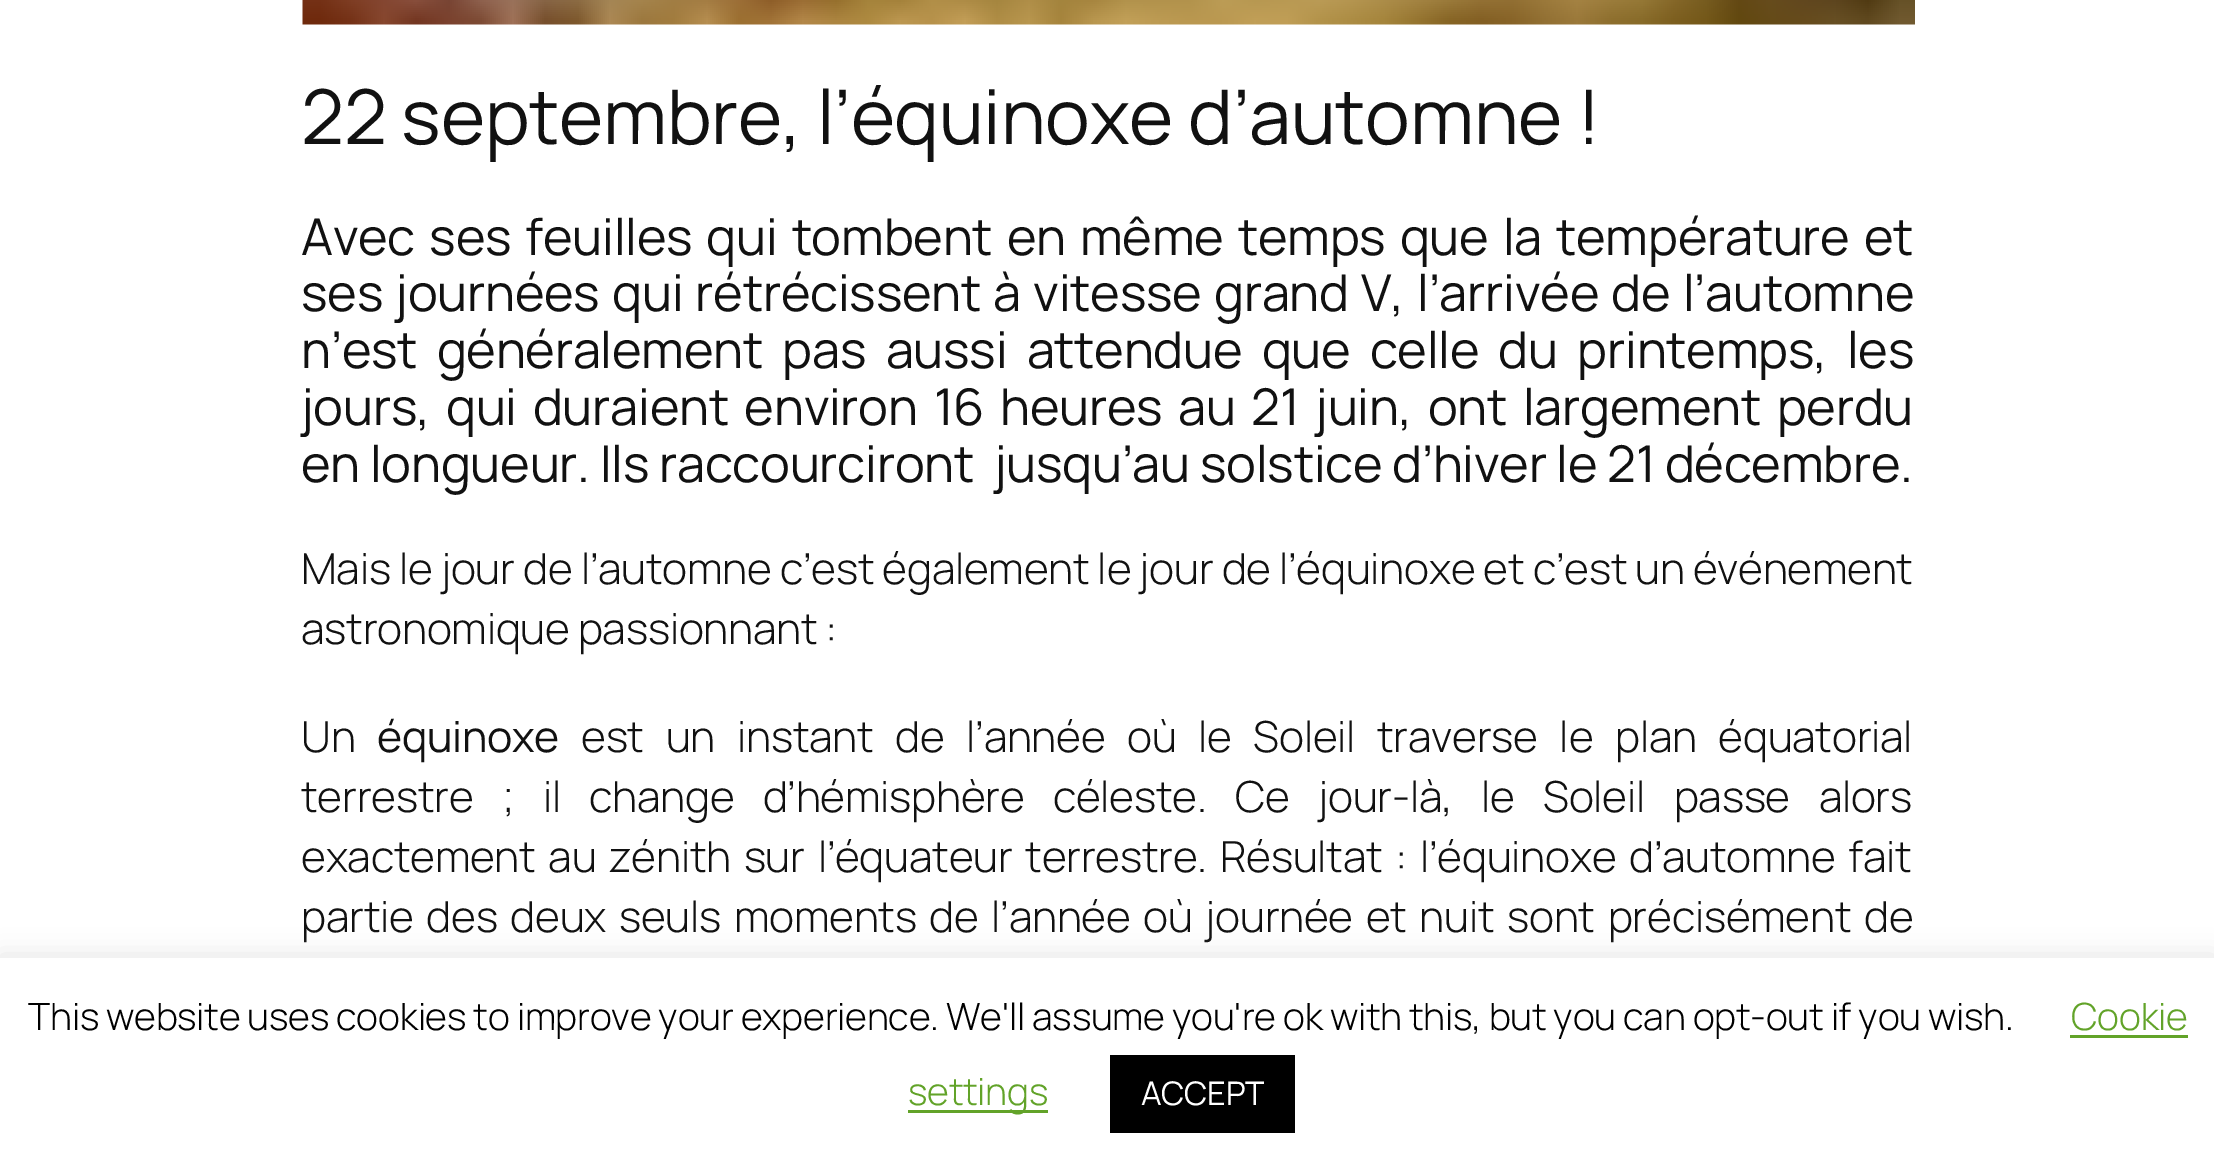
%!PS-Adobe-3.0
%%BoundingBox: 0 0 2214 1175
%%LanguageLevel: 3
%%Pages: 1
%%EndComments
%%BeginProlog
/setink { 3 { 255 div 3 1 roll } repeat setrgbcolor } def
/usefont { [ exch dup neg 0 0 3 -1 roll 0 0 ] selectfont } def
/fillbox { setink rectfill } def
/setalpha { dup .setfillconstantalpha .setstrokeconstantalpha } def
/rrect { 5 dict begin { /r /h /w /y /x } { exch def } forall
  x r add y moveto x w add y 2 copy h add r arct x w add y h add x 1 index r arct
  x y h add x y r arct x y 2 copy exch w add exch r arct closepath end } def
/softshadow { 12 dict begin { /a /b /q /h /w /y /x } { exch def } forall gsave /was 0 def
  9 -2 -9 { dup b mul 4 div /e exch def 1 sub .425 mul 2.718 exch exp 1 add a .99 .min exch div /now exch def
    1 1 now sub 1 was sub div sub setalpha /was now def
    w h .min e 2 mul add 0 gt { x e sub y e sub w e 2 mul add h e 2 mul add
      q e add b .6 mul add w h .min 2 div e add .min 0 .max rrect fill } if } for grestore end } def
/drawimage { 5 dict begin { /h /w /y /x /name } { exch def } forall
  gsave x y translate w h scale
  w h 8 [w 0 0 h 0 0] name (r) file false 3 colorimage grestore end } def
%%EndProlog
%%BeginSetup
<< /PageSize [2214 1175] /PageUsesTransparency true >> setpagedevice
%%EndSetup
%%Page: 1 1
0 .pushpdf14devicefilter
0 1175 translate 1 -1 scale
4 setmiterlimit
0 0 2214 1175 255 255 255 fillbox
(assets/img1.rgb) 302 0 1613 25 drawimage
/Manrope-Regular 75.5 usefont
17 17 17 setink
301 144 moveto -0.25 0 (22 septembre, l’équinoxe d’automne !) ashow
/Manrope-Regular 50.55 usefont
301 255 moveto 4.25 0 32 -0.25 0 (Avec ses feuilles qui tombent en même temps que la température et) awidthshow
301 311 moveto 2.5 0 32 -0.25 0 (ses journées qui rétrécissent à vitesse grand V, l’arrivée de l’automne) awidthshow
301 368 moveto 9.5 0 32 -0.25 0 (n’est généralement pas aussi attendue que celle du printemps, les) awidthshow
301 425 moveto 5.9 0 32 -0.25 0 (jours, qui duraient environ 16 heures au 21 juin, ont largement perdu) awidthshow
301 482 moveto -0.1 0 32 -0.25 0 (en longueur. Ils raccourciront  jusqu’au solstice d’hiver le 21 décembre.) awidthshow
/Manrope-Light 42.75 usefont
301 584 moveto -0.25 0 (Mais le jour de l’automne c’est également le jour de l’équinoxe et c’est un événement) ashow
301 644 moveto -0.25 0 (astronomique passionnant :) ashow
301 752 moveto -0.25 0 (Un) ashow
/Manrope-Regular 42.75 usefont
377 752 moveto -0.25 0 (équinoxe) ashow
/Manrope-Light 42.75 usefont
581 752 moveto 13.5 0 32 -0.25 0 (est un instant de l’année où le Soleil traverse le plan équatorial) awidthshow
301 812 moveto 20.25 0 32 -0.25 0 (terrestre ; il change d’hémisphère céleste. Ce jour-là, le Soleil passe alors) awidthshow
301 872 moveto 4.5 0 32 -0.25 0 (exactement au zénith sur l’équateur terrestre. Résultat : l’équinoxe d’automne fait) awidthshow
301 932 moveto 4.5 0 32 -0.25 0 (partie des deux seuls moments de l’année où journée et nuit sont précisément de) awidthshow
172 171 171 setink
0 955 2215 218 0 12.5 0.3 softshadow
0 958 2214 217 255 255 255 fillbox
/Manrope-Light 37.5 usefont
0 0 0 setink
28 1030 moveto -0.25 0 (This website uses cookies to improve your experience. We'll assume you're ok with this, but you can opt-out if you wish.) ashow
98 163 41 setink
2071 1030 moveto -0.25 0 (Cookie) ashow
2070 1035 118 3 98 163 41 fillbox
908 1110 140 3 98 163 41 fillbox
908 1105 moveto -0.25 0 (settings) ashow
1110 1055 185 78 0 0 0 fillbox
/Manrope-Regular 32.5 usefont
255 255 255 setink
1141 1105 moveto -0.25 0 (ACCEPT) ashow
.poppdf14devicefilter showpage
%%EOF
